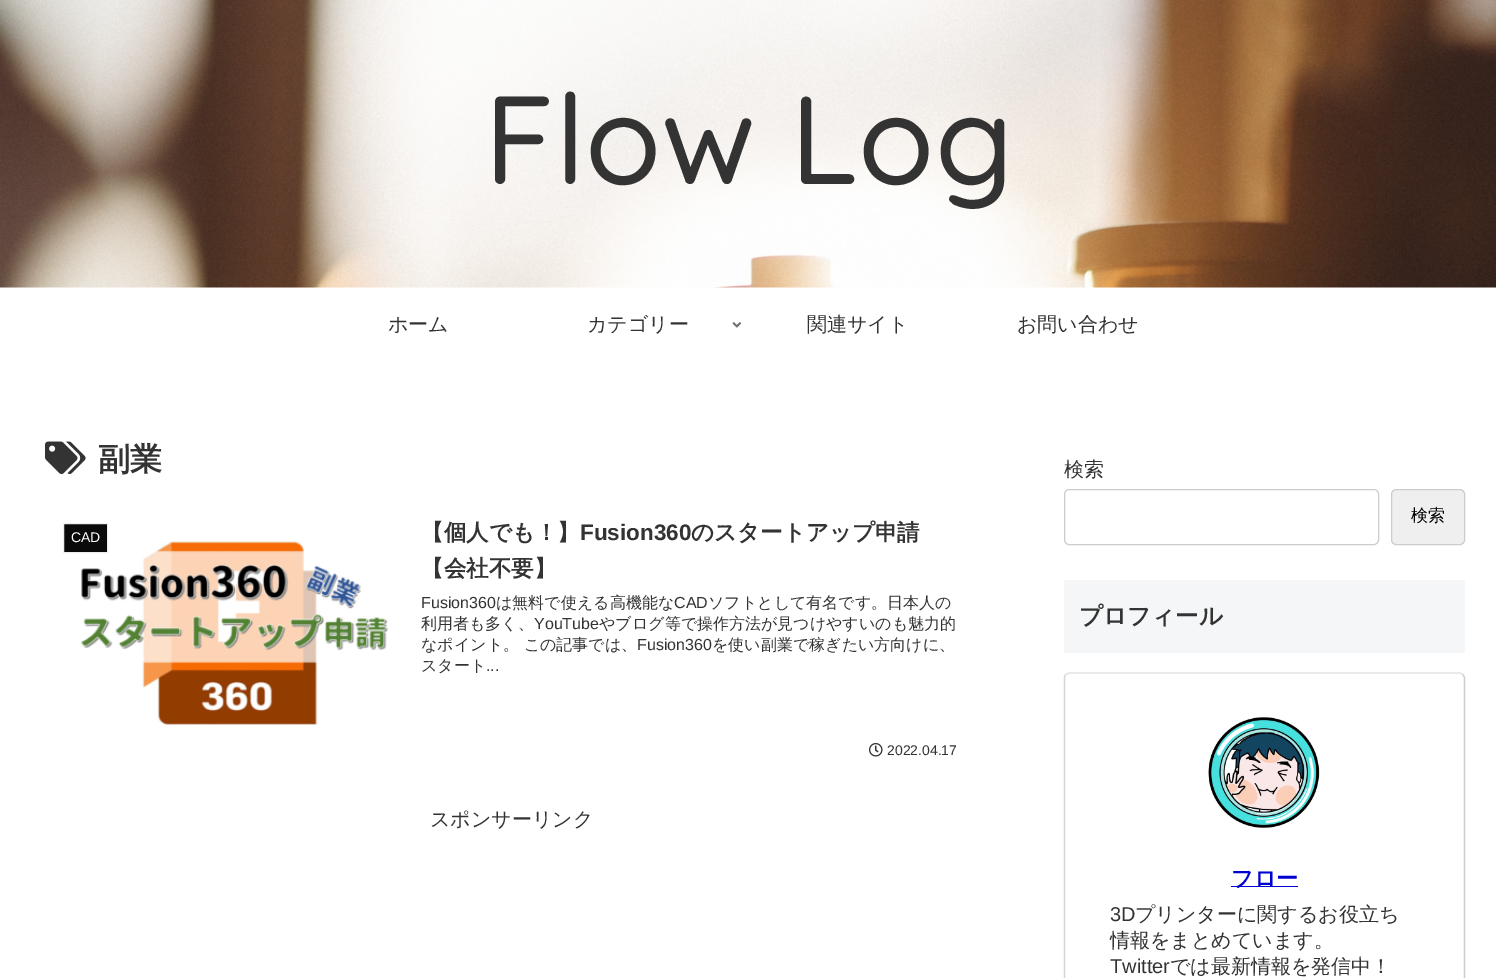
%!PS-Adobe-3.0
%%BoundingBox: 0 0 1496 978
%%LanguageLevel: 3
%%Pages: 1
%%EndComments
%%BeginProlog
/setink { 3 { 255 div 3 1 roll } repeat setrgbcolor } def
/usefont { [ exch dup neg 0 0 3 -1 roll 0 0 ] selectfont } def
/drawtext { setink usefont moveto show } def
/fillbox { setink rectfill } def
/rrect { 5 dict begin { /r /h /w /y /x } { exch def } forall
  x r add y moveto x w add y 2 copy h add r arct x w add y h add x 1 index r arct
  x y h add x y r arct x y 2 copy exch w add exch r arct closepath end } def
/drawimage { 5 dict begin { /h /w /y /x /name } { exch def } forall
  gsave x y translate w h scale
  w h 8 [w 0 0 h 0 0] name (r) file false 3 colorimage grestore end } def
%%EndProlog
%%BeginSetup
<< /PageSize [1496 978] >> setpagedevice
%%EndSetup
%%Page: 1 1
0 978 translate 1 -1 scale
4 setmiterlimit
0 0 1496 978 255 255 255 fillbox
(assets/img1.rgb) 0 0 1496 288 drawimage
(Flow Log) 484 184 /Quicksand-Light 125 51 51 51 drawtext
(ホーム) 388 331 /WenQuanYiZenHei-Medium 20 51 51 51 drawtext
(カテゴリー) 587 331 /WenQuanYiZenHei-Medium 20 51 51 51 drawtext
(assets/img2.rgb) 732 322 10 6 drawimage
(関連サイト) 807 331 /WenQuanYiZenHei-Medium 20 51 51 51 drawtext
(お問い合わせ) 1017 331 /WenQuanYiZenHei-Medium 20 51 51 51 drawtext
(assets/img3.rgb) 45 441 41 33 drawimage
(副業) 98 470 /WenQuanYiZenHei-Bold 32 51 51 51 drawtext
(assets/img4.rgb) 81 541 307 185 drawimage
10 10 10 setink
63.5 523.5 moveto 107.5 523.5 lineto 107.5 552.5 lineto 63.5 552.5 lineto closepath gsave fill grestore
238 238 238 setink
stroke
(CAD) 71 542 /LiberationSans-Regular 14 255 255 255 drawtext
(【個人でも！】) 421 540 /WenQuanYiZenHei-Bold 22.5 51 51 51 drawtext
(Fusion360) 580 540 /LiberationSans-Bold 22.5 51 51 51 drawtext
(のスタートアップ申請) 691 540 /WenQuanYiZenHei-Bold 22.5 51 51 51 drawtext
(【会社不要】) 421 576 /WenQuanYiZenHei-Bold 22.5 51 51 51 drawtext
(Fusion360) 421 608 /LiberationSans-Regular 16 51 51 51 drawtext
(は無料で使える高機能な) 496 608 /WenQuanYiZenHei-Medium 16 51 51 51 drawtext
(CAD) 674 608 /LiberationSans-Regular 16 51 51 51 drawtext
(ソフトとして有名です。日本人の) 708 608 /WenQuanYiZenHei-Medium 16 51 51 51 drawtext
(利用者も多く、) 421 629 /WenQuanYiZenHei-Medium 16 51 51 51 drawtext
(YouTube) 534 629 /LiberationSans-Regular 16 51 51 51 drawtext
(やブログ等で操作方法が見つけやすいのも魅力的) 599 629 /WenQuanYiZenHei-Medium 16 51 51 51 drawtext
(なポイント。 この記事では、) 421 650 /WenQuanYiZenHei-Medium 16 51 51 51 drawtext
(Fusion360) 637 650 /LiberationSans-Regular 16 51 51 51 drawtext
(を使い副業で稼ぎたい方向けに、) 712 650 /WenQuanYiZenHei-Medium 16 51 51 51 drawtext
(スタート) 421 671 /WenQuanYiZenHei-Medium 16 51 51 51 drawtext
(...) 486 671 /LiberationSans-Regular 16 51 51 51 drawtext
(assets/img5.rgb) 869 743 14 14 drawimage
(2022.04.17) 887 755 /LiberationSans-Regular 14 51 51 51 drawtext
(スポンサーリンク) 430 826 /WenQuanYiZenHei-Medium 20 51 51 51 drawtext
(検索) 1064 476 /WenQuanYiZenHei-Medium 20 51 51 51 drawtext
204 204 204 setink
1064.5 489.5 314 55 4.5 rrect stroke
239 239 239 setink
1391.5 489.5 73 55 4.5 rrect gsave fill grestore
204 204 204 setink
stroke
(検索) 1411 521 /WenQuanYiZenHei-Medium 17 0 0 0 drawtext
245 246 247 setink
1064 580 401 73 2.5 rrect fill
(プロフィール) 1079 624 /WenQuanYiZenHei-Bold 23.5 51 51 51 drawtext
227 227 227 setink
1.2 setlinewidth
1065.5 674.5 moveto 1069 673 lineto 1460 673 lineto 1463 674.5 lineto stroke
206 206 206 setink
1463 674.5 moveto 1464.5 677.5 lineto 1464.5 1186 lineto 1463 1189.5 lineto stroke
214 214 214 setink
1065.5 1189.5 moveto 1064.5 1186 lineto 1064.5 677.5 lineto 1065.5 674.5 lineto stroke
(assets/img6.rgb) 1208 717 112 111 drawimage
1231 886 67 1 0 0 208 fillbox
(フロー) 1231 886 /WenQuanYiZenHei-Bold 22 0 0 208 drawtext
(3D) 1110 921 /LiberationSans-Regular 20 51 51 51 drawtext
(プリンターに関するお役立ち) 1135 921 /WenQuanYiZenHei-Medium 20 51 51 51 drawtext
(情報をまとめています。) 1110 947 /WenQuanYiZenHei-Medium 20 51 51 51 drawtext
(Twitter) 1110 973 /LiberationSans-Regular 20 51 51 51 drawtext
(では最新情報を発信中！) 1170 973 /WenQuanYiZenHei-Medium 20 51 51 51 drawtext
showpage
%%EOF
